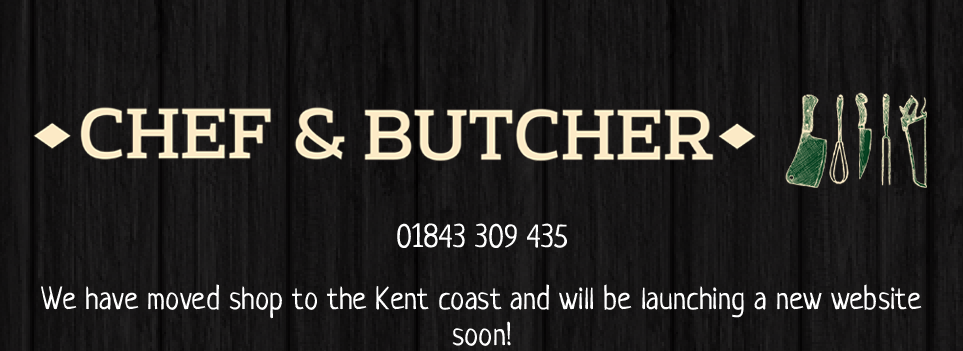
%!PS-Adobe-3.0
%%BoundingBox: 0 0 963 351
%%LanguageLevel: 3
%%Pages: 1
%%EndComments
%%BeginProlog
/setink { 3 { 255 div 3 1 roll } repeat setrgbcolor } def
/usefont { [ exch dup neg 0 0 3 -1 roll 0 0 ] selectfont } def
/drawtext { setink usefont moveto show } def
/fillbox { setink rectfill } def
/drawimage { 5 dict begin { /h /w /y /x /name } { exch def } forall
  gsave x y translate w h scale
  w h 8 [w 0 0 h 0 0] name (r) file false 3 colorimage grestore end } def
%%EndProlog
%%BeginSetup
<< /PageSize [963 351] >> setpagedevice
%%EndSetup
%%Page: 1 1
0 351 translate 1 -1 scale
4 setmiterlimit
0 0 963 351 255 255 255 fillbox
(assets/img1.rgb) 0 0 963 351 drawimage
(assets/img2.rgb) 33 82 894 106 drawimage
(01843 309 435) 396 247 /Neucha-Regular 32 255 255 255 drawtext
(We have moved shop to the Kent coast and will be launching a new website) 41 309 /Neucha-Regular 32 255 255 255 drawtext
(soon!) 452 345 /Neucha-Regular 32 255 255 255 drawtext
showpage
%%EOF
